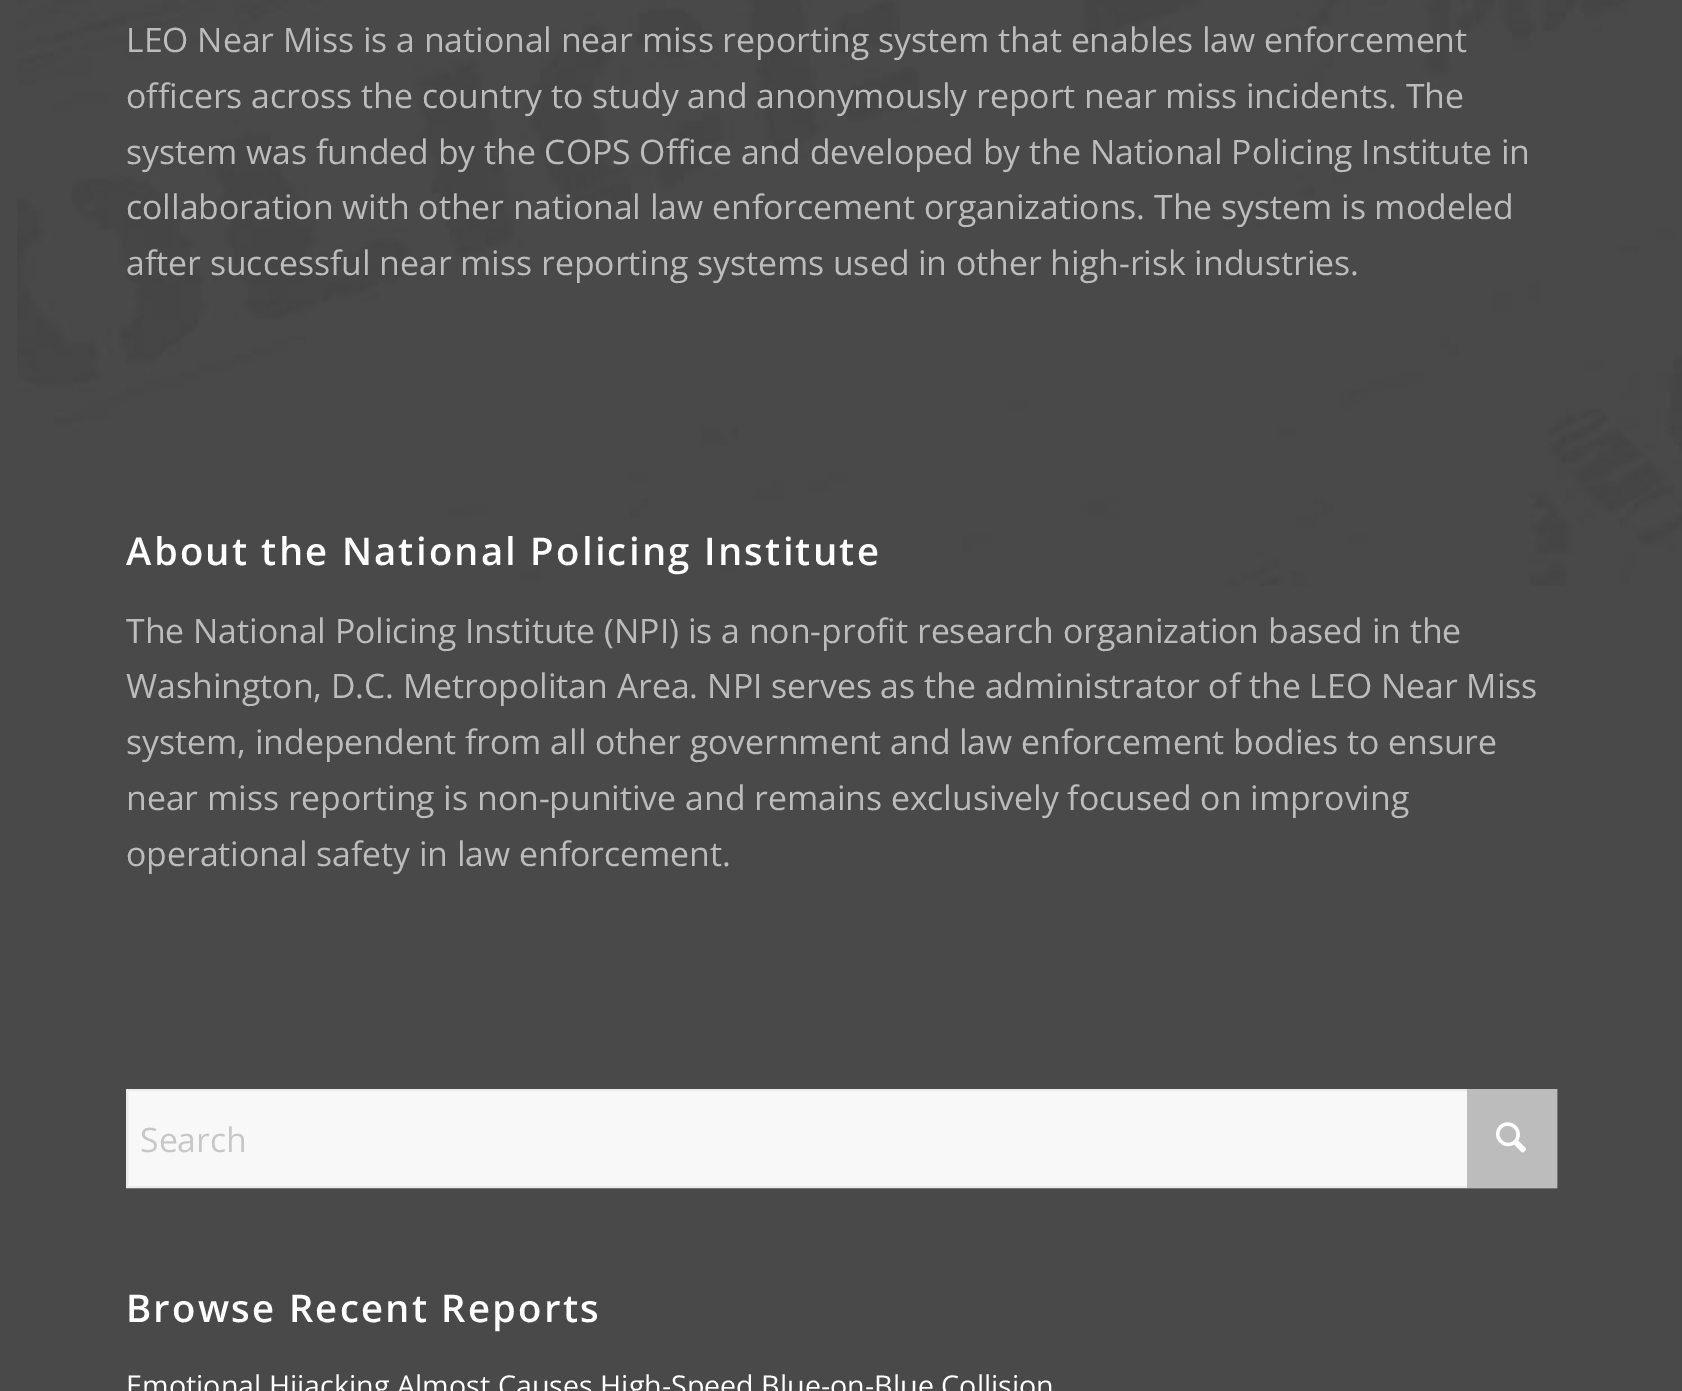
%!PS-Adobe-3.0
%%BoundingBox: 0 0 1682 1391
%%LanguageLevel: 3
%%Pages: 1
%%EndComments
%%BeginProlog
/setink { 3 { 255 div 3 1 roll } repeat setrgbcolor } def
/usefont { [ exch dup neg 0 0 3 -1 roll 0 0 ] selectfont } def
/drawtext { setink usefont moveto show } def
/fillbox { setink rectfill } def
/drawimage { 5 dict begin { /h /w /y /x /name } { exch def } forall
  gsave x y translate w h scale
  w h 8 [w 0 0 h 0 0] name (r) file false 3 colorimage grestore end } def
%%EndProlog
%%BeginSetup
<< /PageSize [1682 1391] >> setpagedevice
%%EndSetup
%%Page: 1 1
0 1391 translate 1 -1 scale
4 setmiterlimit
0 0 1682 1391 73 73 73 fillbox
(assets/img1.rgb) 17 0 1665 586 drawimage
(LEO Near Miss is a national near miss reporting system that enables law enforcement) 126 52 /OpenSans-Regular 33.75 188 188 188 drawtext
(officers across the country to study and anonymously report near miss incidents. The) 126 108 /OpenSans-Regular 33.75 188 188 188 drawtext
(system was funded by the COPS Office and developed by the National Policing Institute in) 126 164 /OpenSans-Regular 33.75 188 188 188 drawtext
(collaboration with other national law enforcement organizations. The system is modeled) 126 219 /OpenSans-Regular 33.75 188 188 188 drawtext
(after successful near miss reporting systems used in other high-risk industries.) 126 275 /OpenSans-Regular 33.75 188 188 188 drawtext
/OpenSans-SemiBold 38.25 usefont
255 255 255 setink
126 565 moveto 2.25 0 (About the National Policing Institute) ashow
(The National Policing Institute \(NPI\) is a non-profit research organization based in the) 126 643 /OpenSans-Regular 33.75 188 188 188 drawtext
(Washington, D.C. Metropolitan Area. NPI serves as the administrator of the LEO Near Miss) 126 698 /OpenSans-Regular 33.75 188 188 188 drawtext
(system, independent from all other government and law enforcement bodies to ensure) 126 754 /OpenSans-Regular 33.75 188 188 188 drawtext
(near miss reporting is non-punitive and remains exclusively focused on improving) 126 810 /OpenSans-Regular 33.75 188 188 188 drawtext
(operational safety in law enforcement.) 126 866 /OpenSans-Regular 33.75 188 188 188 drawtext
128 1091 1339 95 248 248 248 fillbox
235 235 235 setink
2 setlinewidth
127 1090 1429 97 rectstroke
1467 1089 90 99 188 188 188 fillbox
(Search) 140 1152 /OpenSans-Regular 33.75 199 199 199 drawtext
(assets/img2.rgb) 1496 1122 30 31 drawimage
/OpenSans-SemiBold 38.25 usefont
255 255 255 setink
126 1322 moveto 2.25 0 (Browse Recent Reports) ashow
(Emotional Hijacking Almost Causes High-Speed Blue-on-Blue Collision) 126 1396 /OpenSans-Regular 28.7 255 255 255 drawtext
showpage
%%EOF
